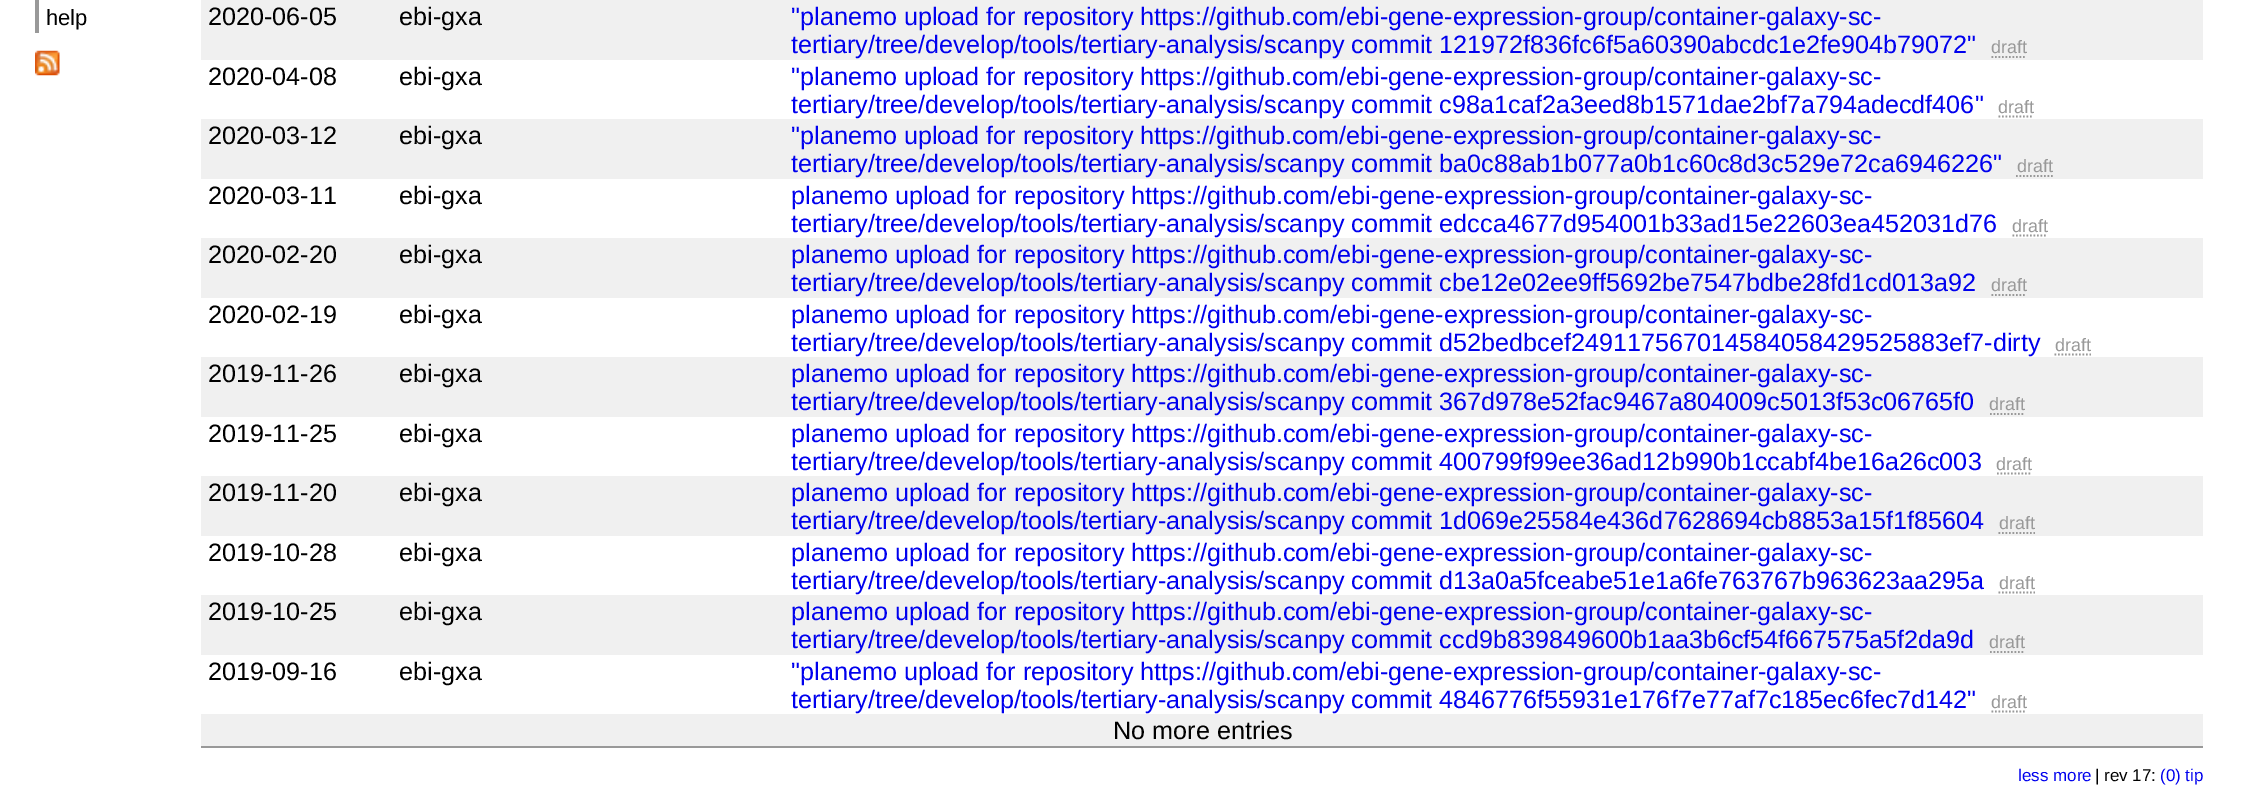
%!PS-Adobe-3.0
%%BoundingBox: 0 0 2258 810
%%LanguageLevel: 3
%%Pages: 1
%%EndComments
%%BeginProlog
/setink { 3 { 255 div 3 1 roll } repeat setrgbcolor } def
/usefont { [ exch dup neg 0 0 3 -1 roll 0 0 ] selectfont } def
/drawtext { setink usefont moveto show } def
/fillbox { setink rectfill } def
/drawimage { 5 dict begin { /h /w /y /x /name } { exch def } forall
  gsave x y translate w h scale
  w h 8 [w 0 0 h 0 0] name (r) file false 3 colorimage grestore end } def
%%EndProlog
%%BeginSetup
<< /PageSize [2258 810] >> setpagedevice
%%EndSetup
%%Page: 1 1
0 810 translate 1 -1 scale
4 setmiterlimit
0 0 2258 810 255 255 255 fillbox
35 0 4 33 153 153 153 fillbox
(help) 46 25 /LiberationSans-Regular 22 0 0 0 drawtext
(assets/img1.rgb) 35 50 25 26 drawimage
201 746 2002 2 153 153 153 fillbox
201 0 2002 60 240 240 240 fillbox
(2020-06-05) 208 25 /LiberationSans-Regular 25.2 0 0 0 drawtext
(ebi-gxa) 399 25 /LiberationSans-Regular 25.2 0 0 0 drawtext
("planemo upload for repository https://github.com/ebi-gene-expression-group/container-galaxy-sc-) 791 25 /LiberationSans-Regular 25.2 0 0 238 drawtext
(tertiary/tree/develop/tools/tertiary-analysis/scanpy commit 121972f836fc6f5a60390abcdc1e2fe904b79072") 791 53 /LiberationSans-Regular 25.2 0 0 238 drawtext
(draft) 1991 53 /LiberationSans-Regular 18 153 153 153 drawtext
1.8 setlinewidth
[1.75 1.75] 0 setdash
1991.5 57 moveto 2026.5 57 lineto stroke
(2020-04-08) 208 85 /LiberationSans-Regular 25.2 0 0 0 drawtext
(ebi-gxa) 399 85 /LiberationSans-Regular 25.2 0 0 0 drawtext
("planemo upload for repository https://github.com/ebi-gene-expression-group/container-galaxy-sc-) 791 85 /LiberationSans-Regular 25.2 0 0 238 drawtext
(tertiary/tree/develop/tools/tertiary-analysis/scanpy commit c98a1caf2a3eed8b1571dae2bf7a794adecdf406") 791 113 /LiberationSans-Regular 25.2 0 0 238 drawtext
(draft) 1998 113 /LiberationSans-Regular 18 153 153 153 drawtext
1998.5 116.5 moveto 2033.5 116.5 lineto stroke
201 119 2002 60 240 240 240 fillbox
(2020-03-12) 208 144 /LiberationSans-Regular 25.2 0 0 0 drawtext
(ebi-gxa) 399 144 /LiberationSans-Regular 25.2 0 0 0 drawtext
("planemo upload for repository https://github.com/ebi-gene-expression-group/container-galaxy-sc-) 791 144 /LiberationSans-Regular 25.2 0 0 238 drawtext
(tertiary/tree/develop/tools/tertiary-analysis/scanpy commit ba0c88ab1b077a0b1c60c8d3c529e72ca6946226") 791 172 /LiberationSans-Regular 25.2 0 0 238 drawtext
(draft) 2017 172 /LiberationSans-Regular 18 153 153 153 drawtext
2016 176 moveto 2053 176 lineto stroke
(2020-03-11) 208 204 /LiberationSans-Regular 25.2 0 0 0 drawtext
(ebi-gxa) 399 204 /LiberationSans-Regular 25.2 0 0 0 drawtext
(planemo upload for repository https://github.com/ebi-gene-expression-group/container-galaxy-sc-) 791 204 /LiberationSans-Regular 25.2 0 0 238 drawtext
(tertiary/tree/develop/tools/tertiary-analysis/scanpy commit edcca4677d954001b33ad15e22603ea452031d76) 791 232 /LiberationSans-Regular 25.2 0 0 238 drawtext
(draft) 2012 232 /LiberationSans-Regular 18 153 153 153 drawtext
2012.5 235.5 moveto 2047.5 235.5 lineto stroke
201 238 2002 60 240 240 240 fillbox
(2020-02-20) 208 263 /LiberationSans-Regular 25.2 0 0 0 drawtext
(ebi-gxa) 399 263 /LiberationSans-Regular 25.2 0 0 0 drawtext
(planemo upload for repository https://github.com/ebi-gene-expression-group/container-galaxy-sc-) 791 263 /LiberationSans-Regular 25.2 0 0 238 drawtext
(tertiary/tree/develop/tools/tertiary-analysis/scanpy commit cbe12e02ee9ff5692be7547bdbe28fd1cd013a92) 791 291 /LiberationSans-Regular 25.2 0 0 238 drawtext
(draft) 1991 291 /LiberationSans-Regular 18 153 153 153 drawtext
1991.5 295 moveto 2026.5 295 lineto stroke
(2020-02-19) 208 323 /LiberationSans-Regular 25.2 0 0 0 drawtext
(ebi-gxa) 399 323 /LiberationSans-Regular 25.2 0 0 0 drawtext
(planemo upload for repository https://github.com/ebi-gene-expression-group/container-galaxy-sc-) 791 323 /LiberationSans-Regular 25.2 0 0 238 drawtext
(tertiary/tree/develop/tools/tertiary-analysis/scanpy commit d52bedbcef249117567014584058429525883ef7-dirty) 791 351 /LiberationSans-Regular 25.2 0 0 238 drawtext
(draft) 2055 351 /LiberationSans-Regular 18 153 153 153 drawtext
2054.5 354.5 moveto 2091 354.5 lineto stroke
201 357 2002 60 240 240 240 fillbox
(2019-11-26) 208 382 /LiberationSans-Regular 25.2 0 0 0 drawtext
(ebi-gxa) 399 382 /LiberationSans-Regular 25.2 0 0 0 drawtext
(planemo upload for repository https://github.com/ebi-gene-expression-group/container-galaxy-sc-) 791 382 /LiberationSans-Regular 25.2 0 0 238 drawtext
(tertiary/tree/develop/tools/tertiary-analysis/scanpy commit 367d978e52fac9467a804009c5013f53c06765f0) 791 410 /LiberationSans-Regular 25.2 0 0 238 drawtext
(draft) 1989 410 /LiberationSans-Regular 18 153 153 153 drawtext
1990 414 moveto 2025 414 lineto stroke
(2019-11-25) 208 442 /LiberationSans-Regular 25.2 0 0 0 drawtext
(ebi-gxa) 399 442 /LiberationSans-Regular 25.2 0 0 0 drawtext
(planemo upload for repository https://github.com/ebi-gene-expression-group/container-galaxy-sc-) 791 442 /LiberationSans-Regular 25.2 0 0 238 drawtext
(tertiary/tree/develop/tools/tertiary-analysis/scanpy commit 400799f99ee36ad12b990b1ccabf4be16a26c003) 791 470 /LiberationSans-Regular 25.2 0 0 238 drawtext
(draft) 1996 470 /LiberationSans-Regular 18 153 153 153 drawtext
1997 473.5 moveto 2032 473.5 lineto stroke
201 476 2002 60 240 240 240 fillbox
(2019-11-20) 208 501 /LiberationSans-Regular 25.2 0 0 0 drawtext
(ebi-gxa) 399 501 /LiberationSans-Regular 25.2 0 0 0 drawtext
(planemo upload for repository https://github.com/ebi-gene-expression-group/container-galaxy-sc-) 791 501 /LiberationSans-Regular 25.2 0 0 238 drawtext
(tertiary/tree/develop/tools/tertiary-analysis/scanpy commit 1d069e25584e436d7628694cb8853a15f1f85604) 791 529 /LiberationSans-Regular 25.2 0 0 238 drawtext
(draft) 1999 529 /LiberationSans-Regular 18 153 153 153 drawtext
1998.5 533 moveto 2035 533 lineto stroke
(2019-10-28) 208 561 /LiberationSans-Regular 25.2 0 0 0 drawtext
(ebi-gxa) 399 561 /LiberationSans-Regular 25.2 0 0 0 drawtext
(planemo upload for repository https://github.com/ebi-gene-expression-group/container-galaxy-sc-) 791 561 /LiberationSans-Regular 25.2 0 0 238 drawtext
(tertiary/tree/develop/tools/tertiary-analysis/scanpy commit d13a0a5fceabe51e1a6fe763767b963623aa295a) 791 589 /LiberationSans-Regular 25.2 0 0 238 drawtext
(draft) 1999 589 /LiberationSans-Regular 18 153 153 153 drawtext
1998.5 592.5 moveto 2035 592.5 lineto stroke
201 595 2002 60 240 240 240 fillbox
(2019-10-25) 208 620 /LiberationSans-Regular 25.2 0 0 0 drawtext
(ebi-gxa) 399 620 /LiberationSans-Regular 25.2 0 0 0 drawtext
(planemo upload for repository https://github.com/ebi-gene-expression-group/container-galaxy-sc-) 791 620 /LiberationSans-Regular 25.2 0 0 238 drawtext
(tertiary/tree/develop/tools/tertiary-analysis/scanpy commit ccd9b839849600b1aa3b6cf54f667575a5f2da9d) 791 648 /LiberationSans-Regular 25.2 0 0 238 drawtext
(draft) 1989 648 /LiberationSans-Regular 18 153 153 153 drawtext
1990 652 moveto 2025 652 lineto stroke
(2019-09-16) 208 680 /LiberationSans-Regular 25.2 0 0 0 drawtext
(ebi-gxa) 399 680 /LiberationSans-Regular 25.2 0 0 0 drawtext
("planemo upload for repository https://github.com/ebi-gene-expression-group/container-galaxy-sc-) 791 680 /LiberationSans-Regular 25.2 0 0 238 drawtext
(tertiary/tree/develop/tools/tertiary-analysis/scanpy commit 4846776f55931e176f7e77af7c185ec6fec7d142") 791 708 /LiberationSans-Regular 25.2 0 0 238 drawtext
(draft) 1991 708 /LiberationSans-Regular 18 153 153 153 drawtext
1991.5 711.5 moveto 2026.5 711.5 lineto stroke
201 714 2002 32 240 240 240 fillbox
(No more entries) 1113 739 /LiberationSans-Regular 25.2 0 0 0 drawtext
(less more) 2018 781 /LiberationSans-Regular 17 0 0 238 drawtext
(| rev 17:) 2095 781 /LiberationSans-Regular 17 0 0 0 drawtext
(\(0\) tip) 2160 781 /LiberationSans-Regular 17 0 0 238 drawtext
showpage
%%EOF
